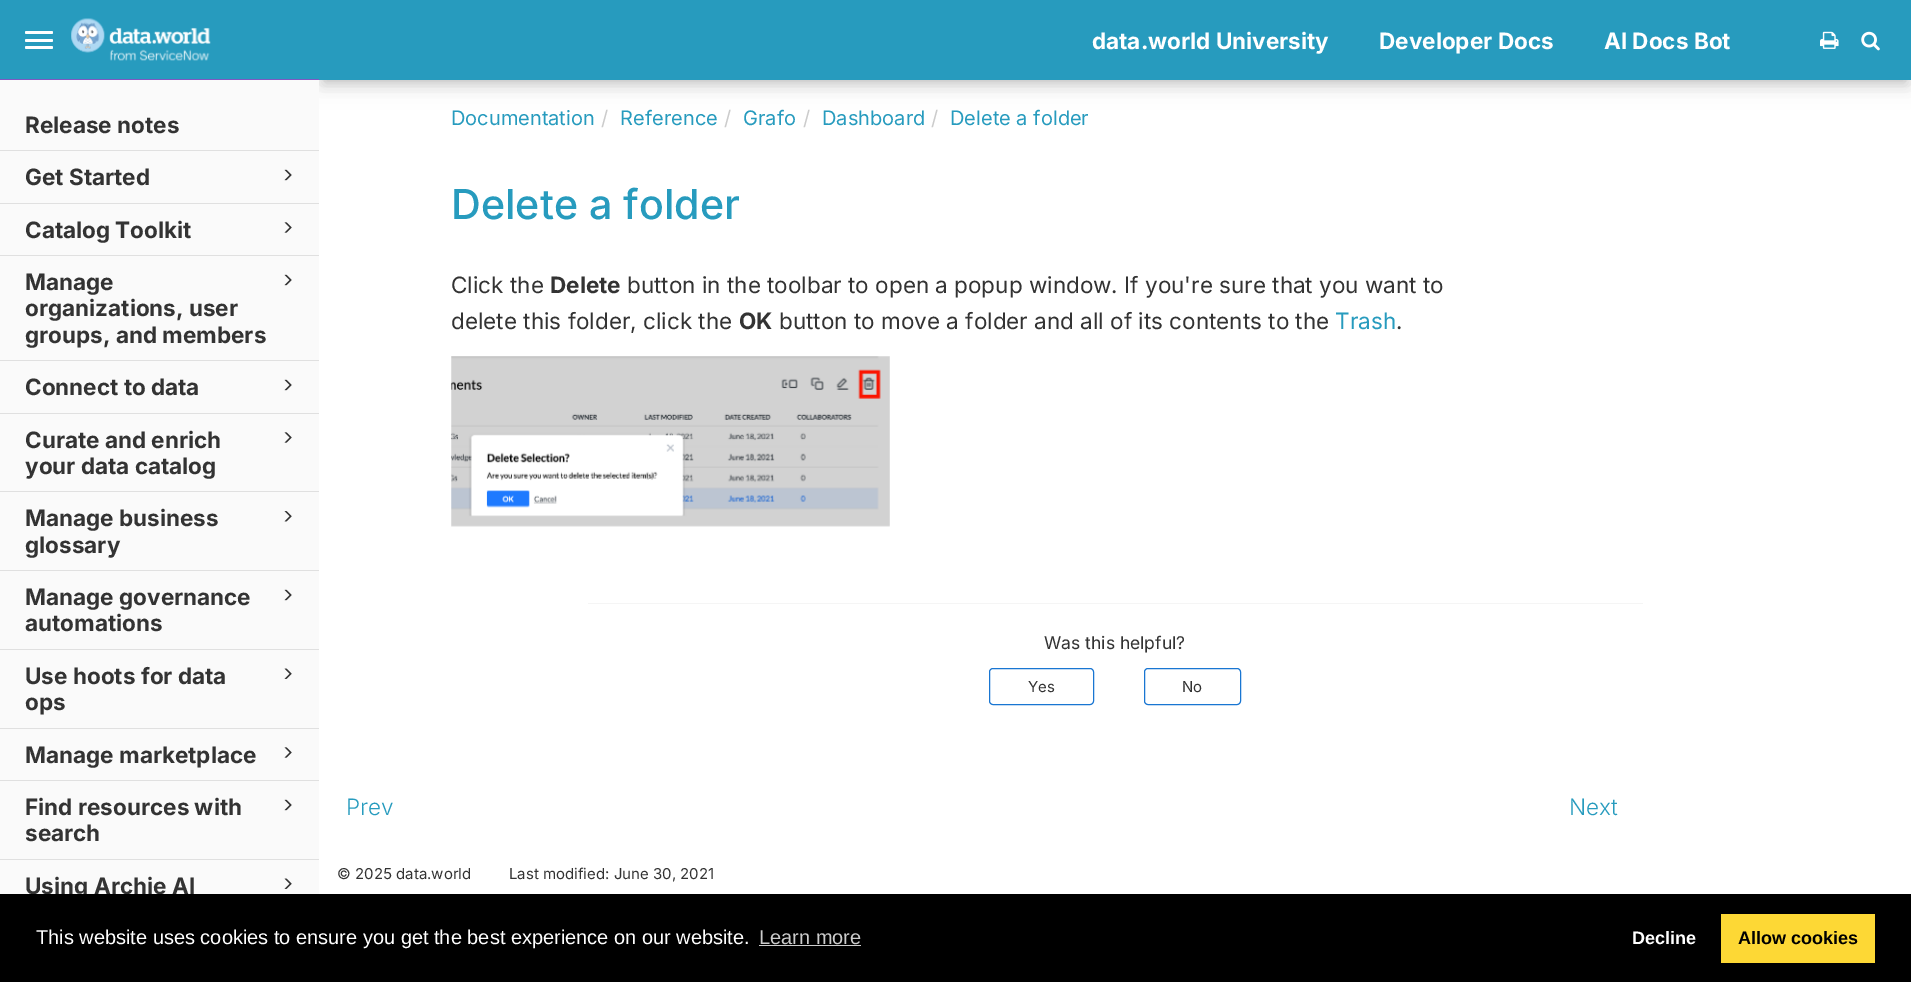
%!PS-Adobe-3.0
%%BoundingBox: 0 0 1911 982
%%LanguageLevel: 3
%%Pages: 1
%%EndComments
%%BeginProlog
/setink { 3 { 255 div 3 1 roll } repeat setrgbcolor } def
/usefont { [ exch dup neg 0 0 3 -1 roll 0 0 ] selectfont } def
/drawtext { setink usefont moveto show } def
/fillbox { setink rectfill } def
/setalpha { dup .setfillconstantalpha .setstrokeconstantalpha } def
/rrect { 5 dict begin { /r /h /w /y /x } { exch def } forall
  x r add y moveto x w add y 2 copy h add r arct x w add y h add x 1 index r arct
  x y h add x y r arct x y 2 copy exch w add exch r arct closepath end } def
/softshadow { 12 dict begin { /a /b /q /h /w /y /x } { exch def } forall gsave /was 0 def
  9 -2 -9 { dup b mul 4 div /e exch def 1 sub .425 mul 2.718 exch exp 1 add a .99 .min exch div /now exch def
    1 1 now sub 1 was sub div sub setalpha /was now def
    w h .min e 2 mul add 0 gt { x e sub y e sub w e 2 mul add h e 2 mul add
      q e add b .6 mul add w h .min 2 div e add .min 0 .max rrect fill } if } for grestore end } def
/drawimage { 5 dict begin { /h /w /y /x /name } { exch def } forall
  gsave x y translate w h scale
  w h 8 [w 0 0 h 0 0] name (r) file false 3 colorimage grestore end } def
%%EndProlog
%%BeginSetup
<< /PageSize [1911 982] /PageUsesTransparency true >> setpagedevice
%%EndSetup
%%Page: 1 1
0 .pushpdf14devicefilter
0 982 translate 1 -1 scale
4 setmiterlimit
0 0 1911 982 255 255 255 fillbox
0 0 0 setink
325 15 1580 68 0 6 0.15 softshadow
319 5 1592 80 0 11 0.12 softshadow
0 80 319 814 250 250 250 fillbox
0 0 319 79 39 155 190 fillbox
0 79 319 1 126 87 194 fillbox
255 255 255 setink
25 31 28 3 1.5 rrect fill
25 39 28 3 1.5 rrect fill
25 46 28 3 1.5 rrect fill
(assets/img1.rgb) 71 18 140 43 drawimage
0 150 319 1 224 224 224 fillbox
(Release notes) 25 133 /Inter-Bold 22.5 51 51 51 drawtext
0 203 319 1 224 224 224 fillbox
(Get Started) 25 185 /Inter-Bold 22.5 51 51 51 drawtext
(assets/img2.rgb) 284 169 8 12 drawimage
0 255 319 1 224 224 224 fillbox
(Catalog Toolkit) 25 238 /Inter-Bold 22.5 51 51 51 drawtext
(assets/img3.rgb) 284 222 8 11 drawimage
0 360 319 1 224 224 224 fillbox
(Manage) 25 290 /Inter-Bold 22.5 51 51 51 drawtext
(assets/img2.rgb) 284 274 8 12 drawimage
(organizations, user) 25 316 /Inter-Bold 22.5 51 51 51 drawtext
(groups, and members) 25 343 /Inter-Bold 22.5 51 51 51 drawtext
0 413 319 1 224 224 224 fillbox
(Connect to data) 25 395 /Inter-Bold 22.5 51 51 51 drawtext
(assets/img2.rgb) 284 379 8 12 drawimage
0 491 319 1 224 224 224 fillbox
(Curate and enrich) 25 448 /Inter-Bold 22.5 51 51 51 drawtext
(assets/img3.rgb) 284 432 8 11 drawimage
(your data catalog) 25 474 /Inter-Bold 22.5 51 51 51 drawtext
0 570 319 1 224 224 224 fillbox
(Manage business) 25 526 /Inter-Bold 22.5 51 51 51 drawtext
(assets/img4.rgb) 284 511 8 11 drawimage
(glossary) 25 553 /Inter-Bold 22.5 51 51 51 drawtext
0 649 319 1 224 224 224 fillbox
(Manage governance) 25 605 /Inter-Bold 22.5 51 51 51 drawtext
(assets/img2.rgb) 284 589 8 12 drawimage
(automations) 25 631 /Inter-Bold 22.5 51 51 51 drawtext
0 728 319 1 224 224 224 fillbox
(Use hoots for data) 25 684 /Inter-Bold 22.5 51 51 51 drawtext
(assets/img5.rgb) 284 668 8 11 drawimage
(ops) 25 710 /Inter-Bold 22.5 51 51 51 drawtext
0 780 319 1 224 224 224 fillbox
(Manage marketplace) 25 763 /Inter-Bold 22.5 51 51 51 drawtext
(assets/img3.rgb) 284 747 8 11 drawimage
0 859 319 1 224 224 224 fillbox
(Find resources with) 25 815 /Inter-Bold 22.5 51 51 51 drawtext
(assets/img2.rgb) 284 799 8 12 drawimage
(search) 25 841 /Inter-Bold 22.5 51 51 51 drawtext
(Using Archie AI) 25 894 /Inter-Bold 22.5 51 51 51 drawtext
(assets/img5.rgb) 284 878 8 11 drawimage
319 0 1592 80 39 155 190 fillbox
(data.world University) 1092 49 /Inter-Bold 22.5 255 255 255 drawtext
(Developer Docs) 1379 49 /Inter-Bold 22.5 255 255 255 drawtext
(AI Docs Bot) 1604 49 /Inter-Bold 22.5 255 255 255 drawtext
(assets/img6.rgb) 1820 31 19 18 drawimage
(assets/img7.rgb) 1861 31 19 20 drawimage
(Documentation) 451 125 /Inter-Regular 20 39 155 190 drawtext
(/) 601 125 /Inter-Regular 20 204 204 204 drawtext
(Reference) 620 125 /Inter-Regular 20 39 155 190 drawtext
(/) 724 125 /Inter-Regular 20 204 204 204 drawtext
(Grafo) 743 125 /Inter-Regular 20 39 155 190 drawtext
(/) 803 125 /Inter-Regular 20 204 204 204 drawtext
(Dashboard) 822 125 /Inter-Regular 20 39 155 190 drawtext
(/) 931 125 /Inter-Regular 20 204 204 204 drawtext
(Delete a folder) 950 125 /Inter-Regular 20 39 155 190 drawtext
(Delete a folder) 451 219 /Inter-Medium 41.25 39 155 190 drawtext
(Click the) 451 293 /Inter-Regular 22.5 51 51 51 drawtext
(Delete) 550 293 /Inter-Bold 22.5 51 51 51 drawtext
(button in the toolbar to open a popup window. If you're sure that you want to) 627 293 /Inter-Regular 22.5 51 51 51 drawtext
(delete this folder, click the) 451 329 /Inter-Regular 22.5 51 51 51 drawtext
(OK) 739 329 /Inter-Bold 22.5 51 51 51 drawtext
(button to move a folder and all of its contents to the) 779 329 /Inter-Regular 22.5 51 51 51 drawtext
(Trash) 1335 329 /Inter-Regular 22.5 39 155 190 drawtext
(.) 1396 329 /Inter-Regular 22.5 51 51 51 drawtext
(assets/img8.rgb) 451 356 439 171 drawimage
588 603 1055 1 245 245 245 fillbox
(Was this helpful?) 1044 649 /Inter-Regular 17.5 51 51 51 drawtext
25 118 210 setink
989.5 668.5 104 36 3.5 rrect stroke
(Yes) 1028 692 /Inter-Regular 15 51 51 51 drawtext
25 118 210 setink
1144.5 668.5 96 36 3.5 rrect stroke
(No) 1182 692 /Inter-Regular 15 51 51 51 drawtext
(Prev) 346 815 /Inter-Light 22.5 39 155 190 drawtext
(Next) 1569 815 /Inter-Light 22.5 39 155 190 drawtext
(© 2025 data.world) 337 879 /Inter-Regular 15 51 51 51 drawtext
(Last modified: June 30, 2021) 509 879 /Inter-Regular 15 51 51 51 drawtext
0 894 1911 88 0 0 0 fillbox
(This website uses cookies to ensure you get the best experience on our website.) 36 944 /LiberationSans-Regular 20 255 255 255 drawtext
(Learn more) 759 944 /LiberationSans-Regular 20 204 204 204 drawtext
759 945 102 1 204 204 204 fillbox
(Decline) 1632 944 /LiberationSans-Bold 18 255 255 255 drawtext
1721 914 154 49 253 216 53 fillbox
(Allow cookies) 1738 944 /LiberationSans-Bold 18 0 0 0 drawtext
.poppdf14devicefilter showpage
%%EOF
